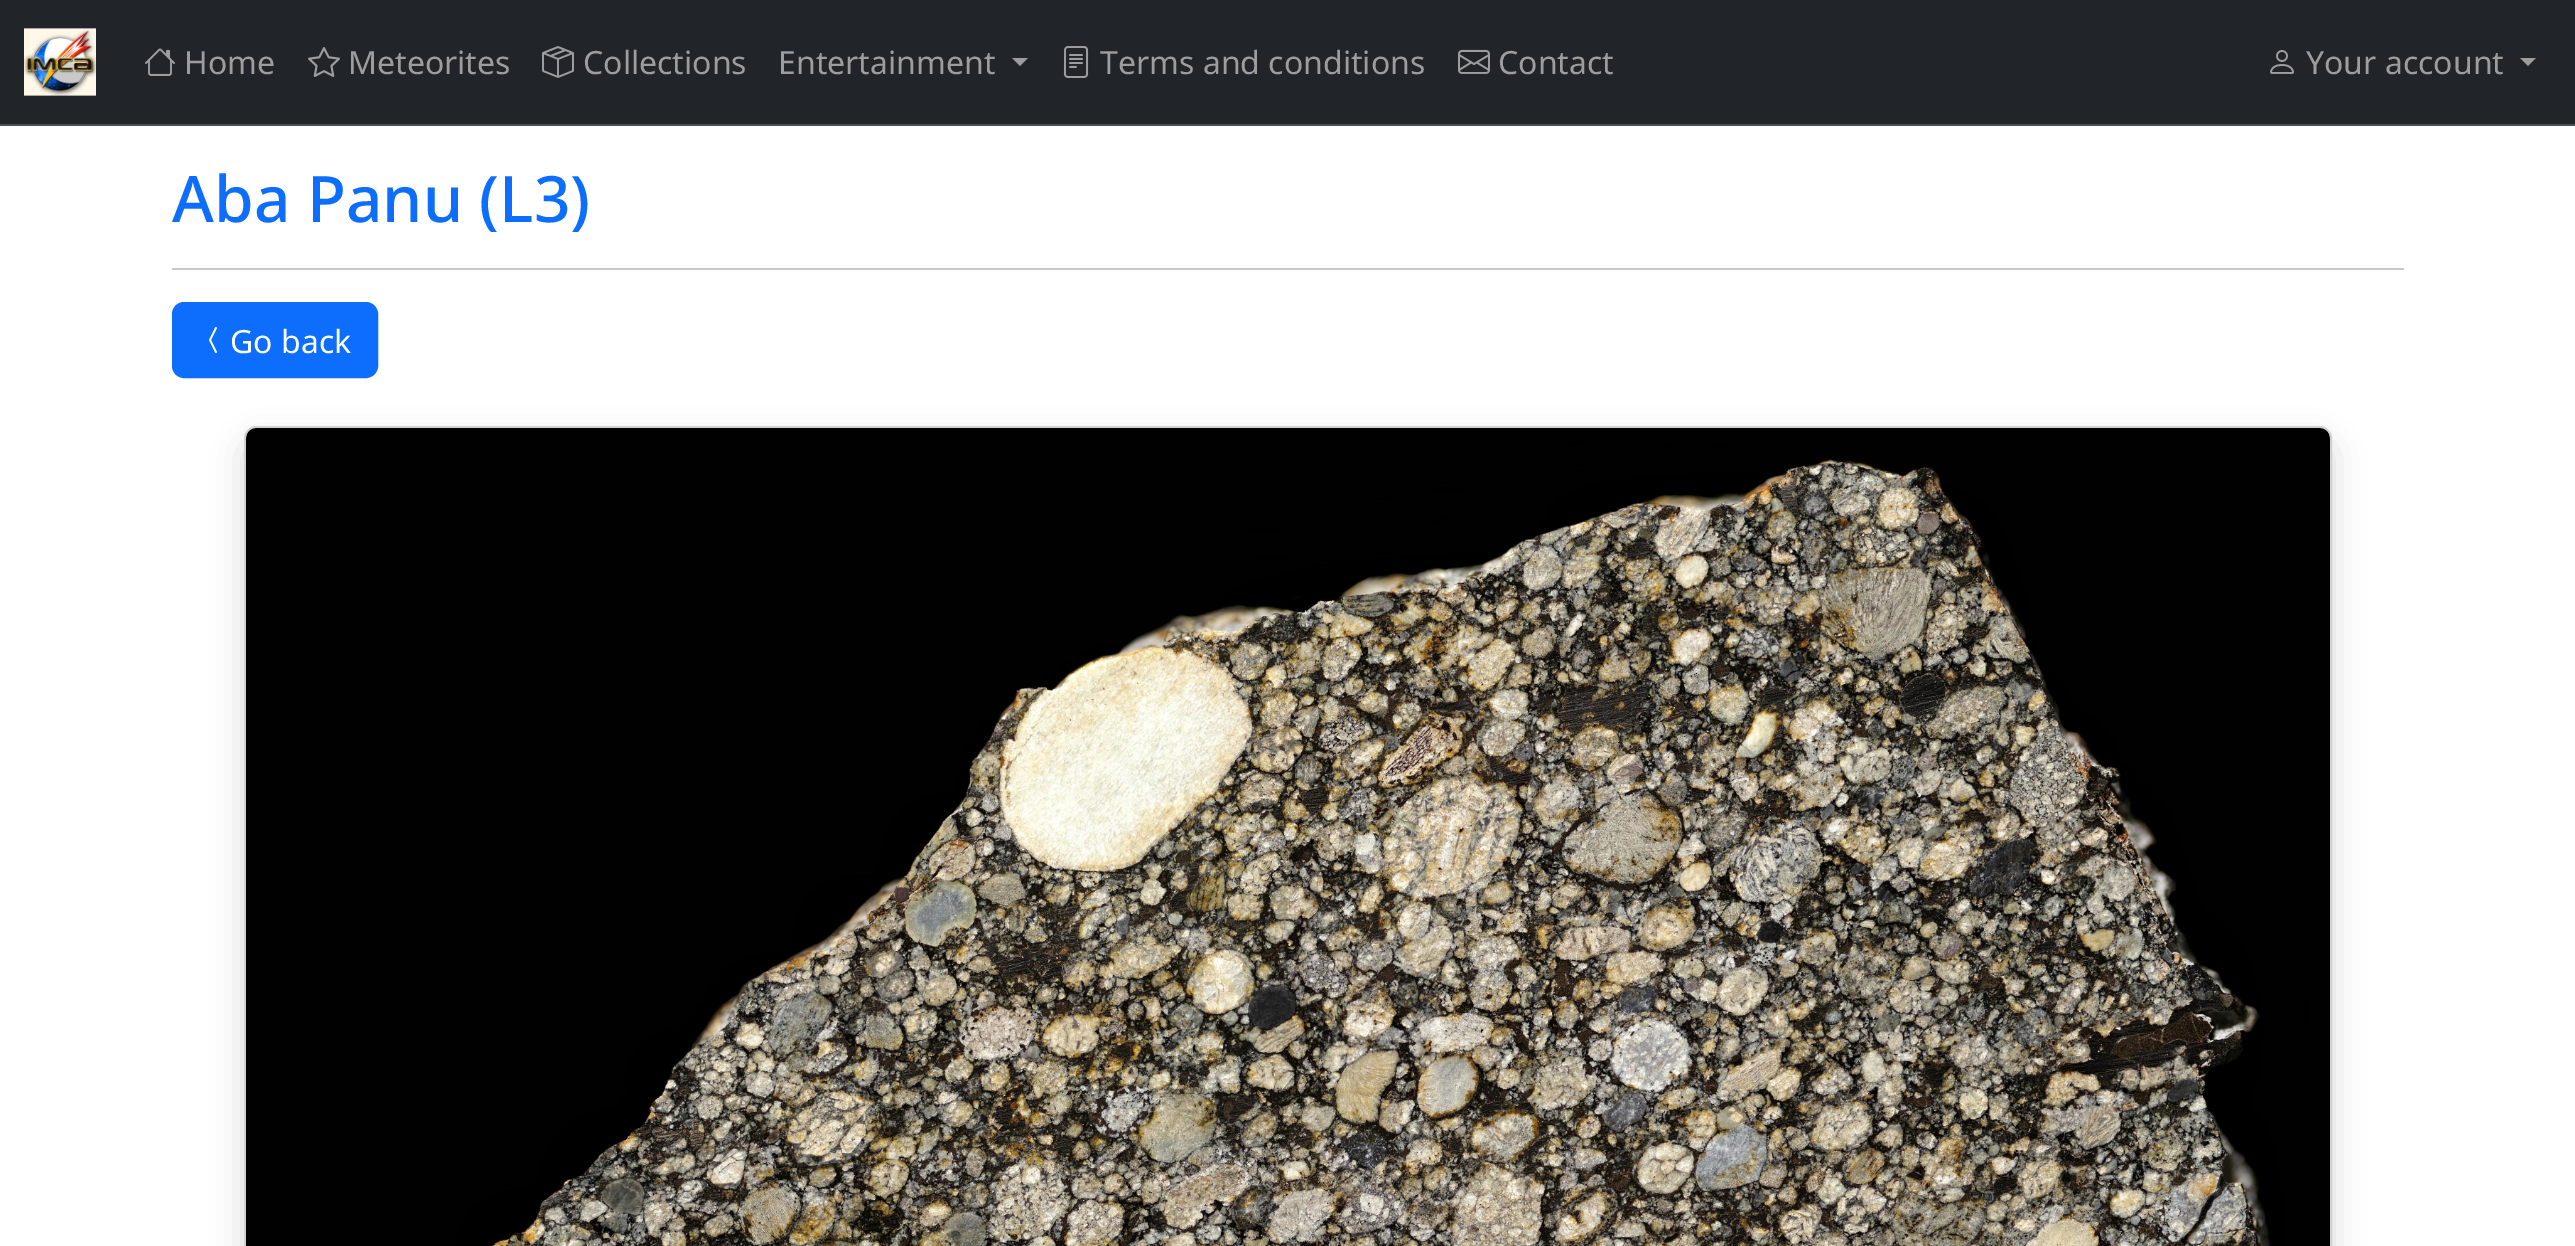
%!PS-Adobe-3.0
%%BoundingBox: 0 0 2575 1246
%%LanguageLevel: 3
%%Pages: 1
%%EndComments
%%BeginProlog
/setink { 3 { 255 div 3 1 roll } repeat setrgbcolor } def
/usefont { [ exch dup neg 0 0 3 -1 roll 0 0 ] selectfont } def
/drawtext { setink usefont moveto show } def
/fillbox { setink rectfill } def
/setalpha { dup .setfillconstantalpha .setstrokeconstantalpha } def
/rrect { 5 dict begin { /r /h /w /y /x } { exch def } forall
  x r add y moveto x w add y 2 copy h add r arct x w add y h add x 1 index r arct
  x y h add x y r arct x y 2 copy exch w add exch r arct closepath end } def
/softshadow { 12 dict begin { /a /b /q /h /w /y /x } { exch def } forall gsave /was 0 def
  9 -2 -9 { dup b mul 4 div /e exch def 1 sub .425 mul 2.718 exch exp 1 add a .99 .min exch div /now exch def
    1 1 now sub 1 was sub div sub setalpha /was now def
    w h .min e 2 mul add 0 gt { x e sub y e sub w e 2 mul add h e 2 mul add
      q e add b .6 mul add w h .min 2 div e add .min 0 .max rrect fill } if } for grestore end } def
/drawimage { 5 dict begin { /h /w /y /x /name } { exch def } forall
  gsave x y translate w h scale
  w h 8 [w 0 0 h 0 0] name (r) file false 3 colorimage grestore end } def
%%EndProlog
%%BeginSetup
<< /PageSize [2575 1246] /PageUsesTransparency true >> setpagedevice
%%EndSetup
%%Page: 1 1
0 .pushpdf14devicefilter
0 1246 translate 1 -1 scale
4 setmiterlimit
0 0 2575 1246 255 255 255 fillbox
0 0 2575 124 33 37 41 fillbox
0 124 2575 2 73 80 87 fillbox
(assets/img1.rgb) 24 28 72 68 drawimage
(assets/img2.rgb) 145 48 30 28 drawimage
(Home) 184 74 /NotoSans-Regular 32 155 157 159 drawtext
(assets/img3.rgb) 308 47 32 30 drawimage
(Meteorites) 348 74 /NotoSans-Regular 32 155 157 159 drawtext
(assets/img4.rgb) 542 46 32 32 drawimage
(Collections) 583 74 /NotoSans-Regular 32 155 157 159 drawtext
(Entertainment) 778 74 /NotoSans-Regular 32 155 157 159 drawtext
1012 58 moveto 1028 58 lineto 1020 66 lineto closepath fill
(assets/img5.rgb) 1063 46 26 32 drawimage
(Terms and conditions) 1100 74 /NotoSans-Regular 32 155 157 159 drawtext
(assets/img6.rgb) 1458 49 32 25 drawimage
(Contact) 1498 74 /NotoSans-Regular 32 155 157 159 drawtext
(assets/img7.rgb) 2270 50 24 24 drawimage
(Your account) 2306 74 /NotoSans-Regular 32 155 157 159 drawtext
2520 58 moveto 2536 58 lineto 2528 66 lineto closepath fill
(Aba Panu \(L3\)) 172 222 /NotoSans-Medium 64 13 110 253 drawtext
172 268 2232 2 200 201 202 fillbox
13 110 253 setink
173 303 204 74 11 rrect gsave fill grestore
2 setlinewidth
stroke
(assets/img8.rgb) 209 327 8 26 drawimage
(Go back) 230 353 /NotoSans-Regular 32 255 255 255 drawtext
0 0 0 setink
244 442 2088 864 12 16 0.15 softshadow
210 210 210 setink
245 427 2086 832 11 rrect stroke
(assets/img9.rgb) 246 428 2084 818 drawimage
.poppdf14devicefilter showpage
%%EOF
